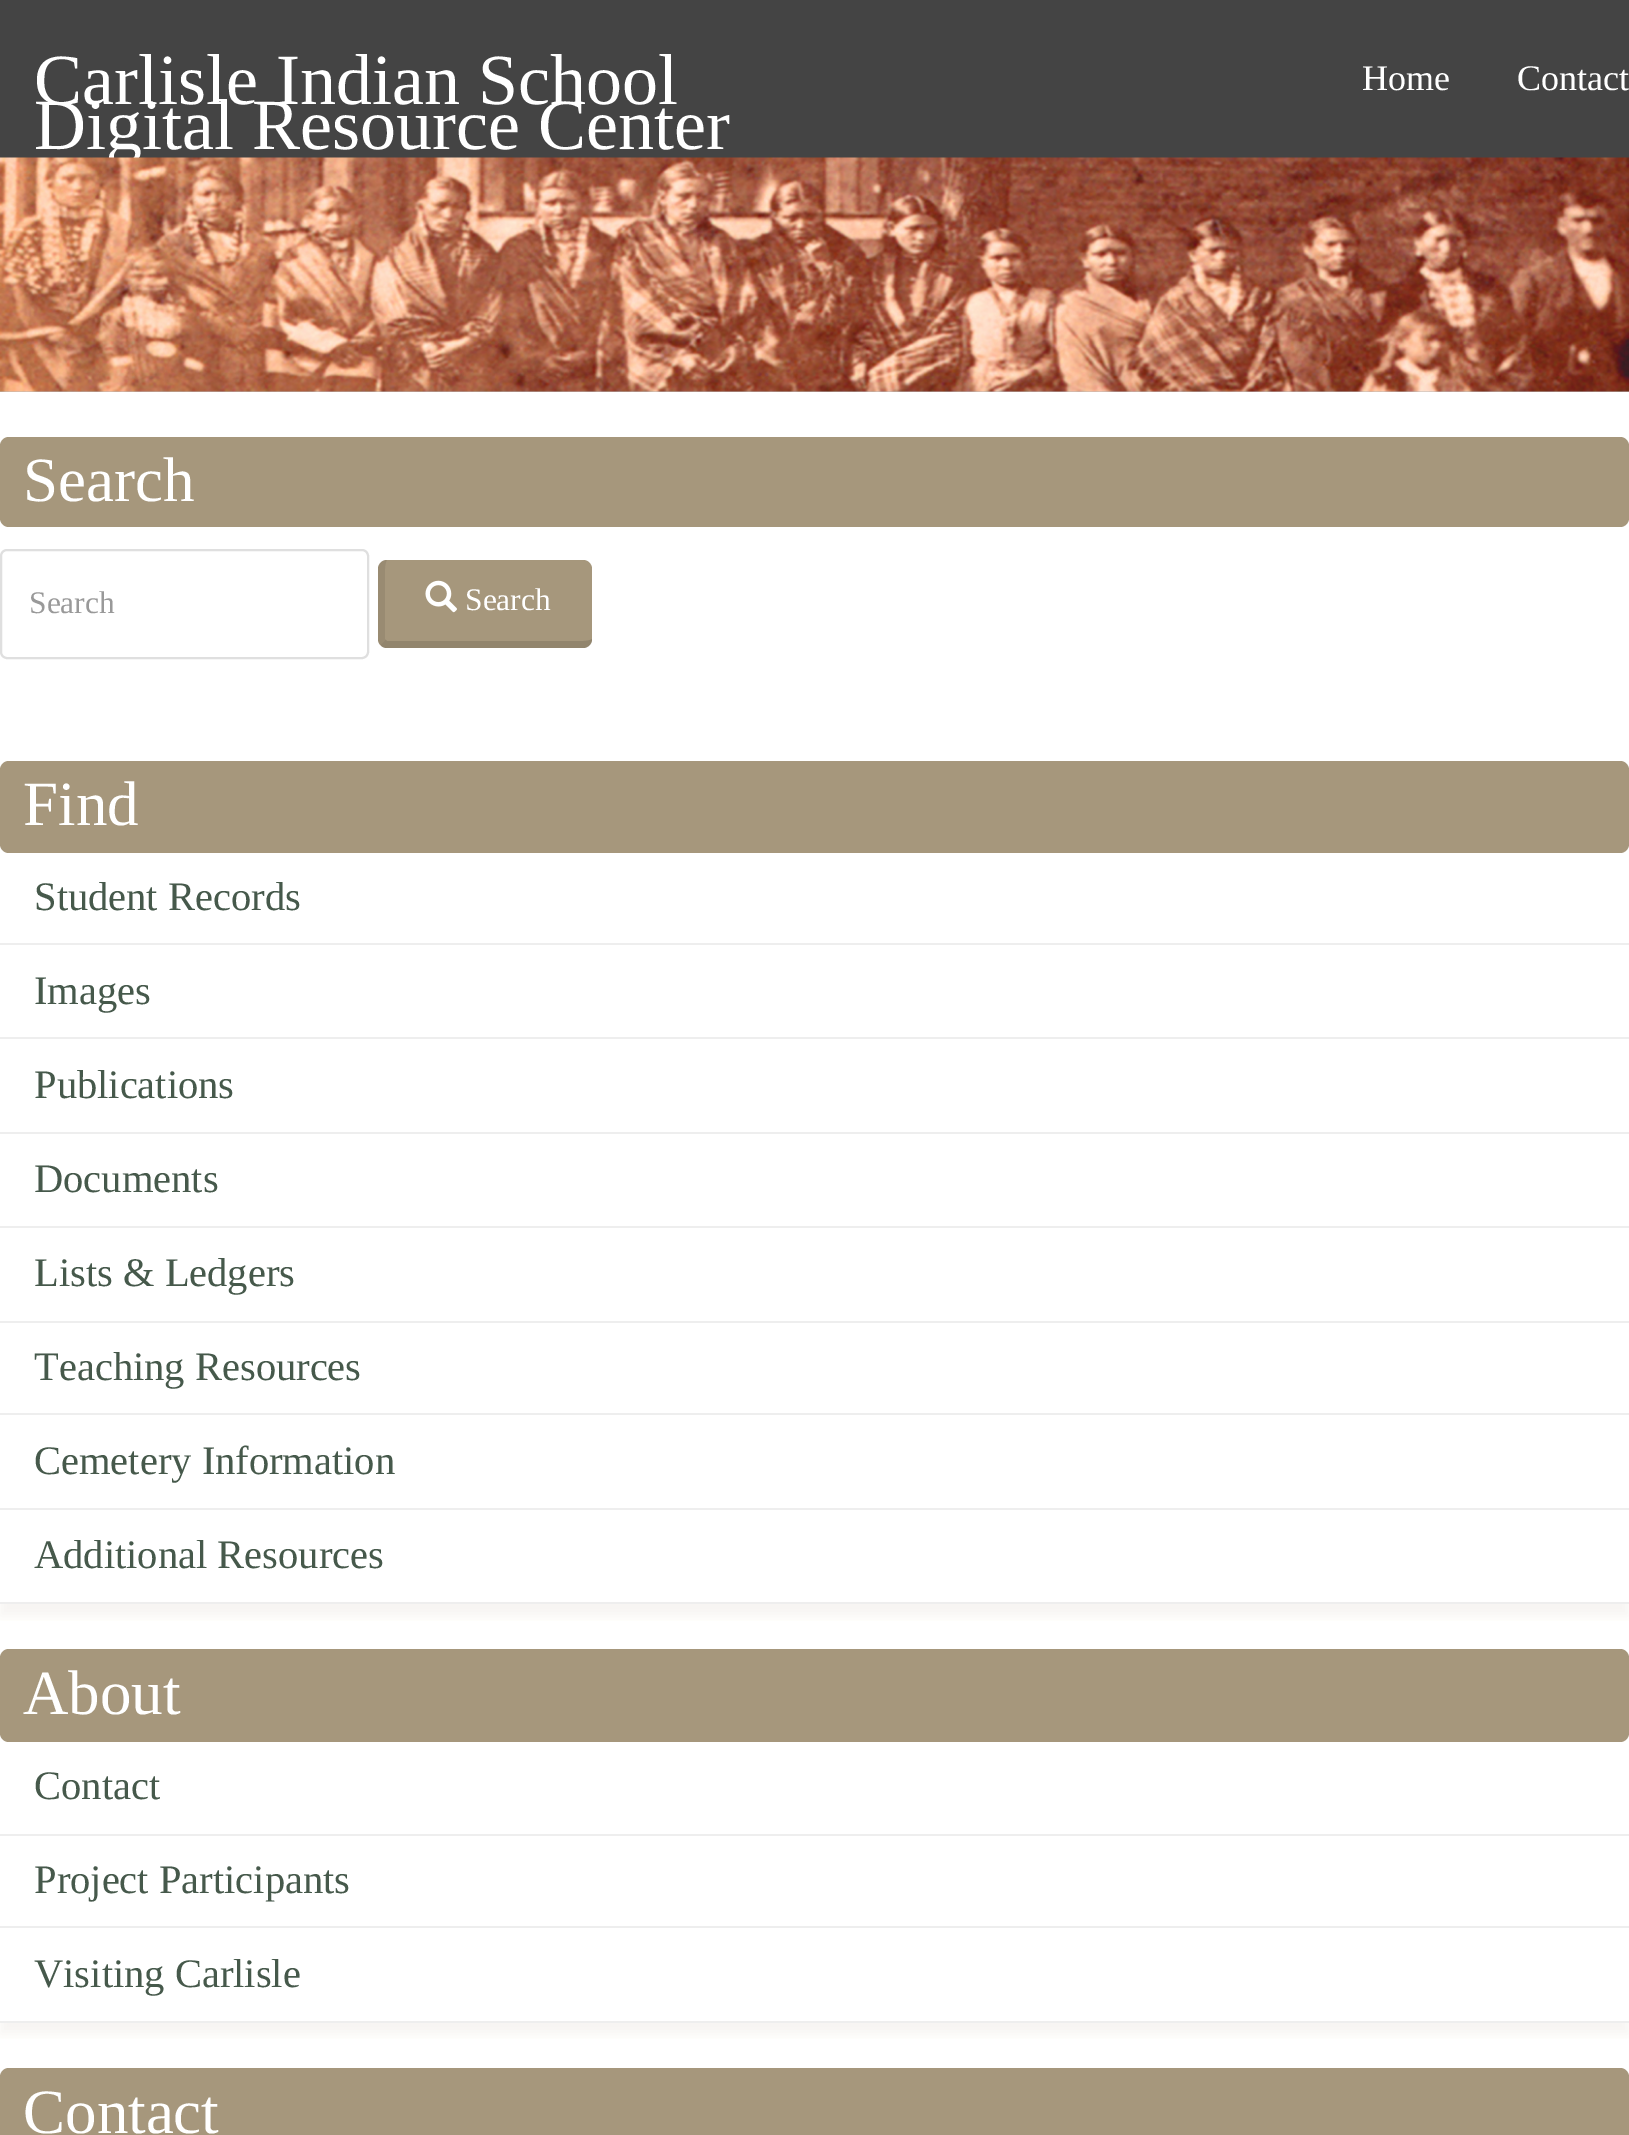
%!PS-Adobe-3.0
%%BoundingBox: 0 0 1629 2135
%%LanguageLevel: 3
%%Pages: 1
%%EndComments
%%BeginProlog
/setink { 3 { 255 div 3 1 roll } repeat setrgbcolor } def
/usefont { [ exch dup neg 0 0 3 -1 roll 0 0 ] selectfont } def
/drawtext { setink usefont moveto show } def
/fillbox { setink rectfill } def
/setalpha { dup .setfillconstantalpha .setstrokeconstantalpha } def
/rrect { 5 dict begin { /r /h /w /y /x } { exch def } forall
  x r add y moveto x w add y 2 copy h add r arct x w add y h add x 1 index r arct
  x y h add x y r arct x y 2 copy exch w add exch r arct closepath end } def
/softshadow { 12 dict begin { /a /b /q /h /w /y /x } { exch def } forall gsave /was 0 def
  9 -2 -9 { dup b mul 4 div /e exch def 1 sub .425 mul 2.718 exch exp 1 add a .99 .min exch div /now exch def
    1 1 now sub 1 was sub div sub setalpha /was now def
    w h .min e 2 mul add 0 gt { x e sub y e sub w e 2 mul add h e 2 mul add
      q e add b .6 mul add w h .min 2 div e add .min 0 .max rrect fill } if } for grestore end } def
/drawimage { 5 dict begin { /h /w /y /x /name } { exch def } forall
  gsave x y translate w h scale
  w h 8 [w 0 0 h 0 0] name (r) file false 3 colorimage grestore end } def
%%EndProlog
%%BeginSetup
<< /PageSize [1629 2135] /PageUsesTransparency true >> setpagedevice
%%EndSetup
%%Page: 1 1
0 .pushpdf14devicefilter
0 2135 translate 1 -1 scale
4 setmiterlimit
0 0 1629 2135 255 255 255 fillbox
0 0 1629 158 68 68 68 fillbox
(Carlisle Indian School) 34 104 /LiberationSerif-Regular 72 255 255 255 drawtext
(Digital Resource Center) 34 149 /LiberationSerif-Regular 72 255 255 255 drawtext
(Home) 1362 90 /LiberationSerif-Regular 36 255 255 255 drawtext
(Contact) 1517 90 /LiberationSerif-Regular 36 255 255 255 drawtext
0 391 1629 1 187 187 187 fillbox
(assets/img1.rgb) 0 157 1629 235 drawimage
166 151 124 setink
0 437 1629 90 9 rrect fill
(Search) 23 501 /LiberationSerif-Regular 63 255 255 255 drawtext
223 223 223 setink
2 setlinewidth
1 550 367 108 6 rrect stroke
(Search) 29 613 /LiberationSerif-Regular 31.5 153 153 153 drawtext
166 151 124 setink
378 560 214 88 9 rrect fill
0.12 setalpha
0 0 0 setink
592 639 moveto 592 641 lineto 591 645 587 648 583 648 curveto 387 648 lineto 384 648 382 647 381 645 curveto 386 640 lineto 387 641 lineto 583 641 lineto 587 641 591 640 592 639 curveto closepath fill
0.08 setalpha
387 560 moveto 386 561 385 565 385 569 curveto 385 639 lineto 386 640 lineto 381 645 lineto 379 644 378 642 378 639 curveto 378 569 lineto 378 565 381 561 385 560 curveto closepath fill
1 setalpha
(assets/img2.rgb) 425 580 32 33 drawimage
(Search) 465 610 /LiberationSerif-Regular 31.5 255 255 255 drawtext
gsave
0 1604 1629 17 rectclip
166 151 124 setink
0 772 1629 844 0 5.5 0.1 softshadow
grestore
166 151 124 setink
0 761 1629 92 9 rrect fill
(Find) 23 825 /LiberationSerif-Regular 63 255 255 255 drawtext
0 943 1629 2 238 238 238 fillbox
(Student Records) 34 910 /LiberationSerif-Regular 40.5 70 89 75 drawtext
0 1037 1629 2 238 238 238 fillbox
(Images) 34 1004 /LiberationSerif-Regular 40.5 70 89 75 drawtext
0 1132 1629 2 238 238 238 fillbox
(Publications) 34 1098 /LiberationSerif-Regular 40.5 70 89 75 drawtext
0 1226 1629 2 238 238 238 fillbox
(Documents) 34 1192 /LiberationSerif-Regular 40.5 70 89 75 drawtext
0 1321 1629 2 238 238 238 fillbox
(Lists & Ledgers) 34 1286 /LiberationSerif-Regular 40.5 70 89 75 drawtext
0 1413 1629 2 238 238 238 fillbox
(Teaching Resources) 34 1380 /LiberationSerif-Regular 40.5 70 89 75 drawtext
0 1508 1629 2 238 238 238 fillbox
(Cemetery Information) 34 1474 /LiberationSerif-Regular 40.5 70 89 75 drawtext
0 1602 1629 2 238 238 238 fillbox
(Additional Resources) 34 1568 /LiberationSerif-Regular 40.5 70 89 75 drawtext
gsave
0 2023 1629 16 rectclip
166 151 124 setink
0 1661 1629 373 0 5.5 0.1 softshadow
grestore
166 151 124 setink
0 1649 1629 93 9 rrect fill
(About) 23 1714 /LiberationSerif-Regular 63 255 255 255 drawtext
0 1834 1629 2 238 238 238 fillbox
(Contact) 34 1799 /LiberationSerif-Regular 40.5 70 89 75 drawtext
0 1926 1629 2 238 238 238 fillbox
(Project Participants) 34 1893 /LiberationSerif-Regular 40.5 70 89 75 drawtext
0 2021 1629 2 238 238 238 fillbox
(Visiting Carlisle) 34 1987 /LiberationSerif-Regular 40.5 70 89 75 drawtext
166 151 124 setink
0 2068 1629 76 9 rrect fill
(Contact) 23 2133 /LiberationSerif-Regular 63 255 255 255 drawtext
.poppdf14devicefilter showpage
%%EOF
